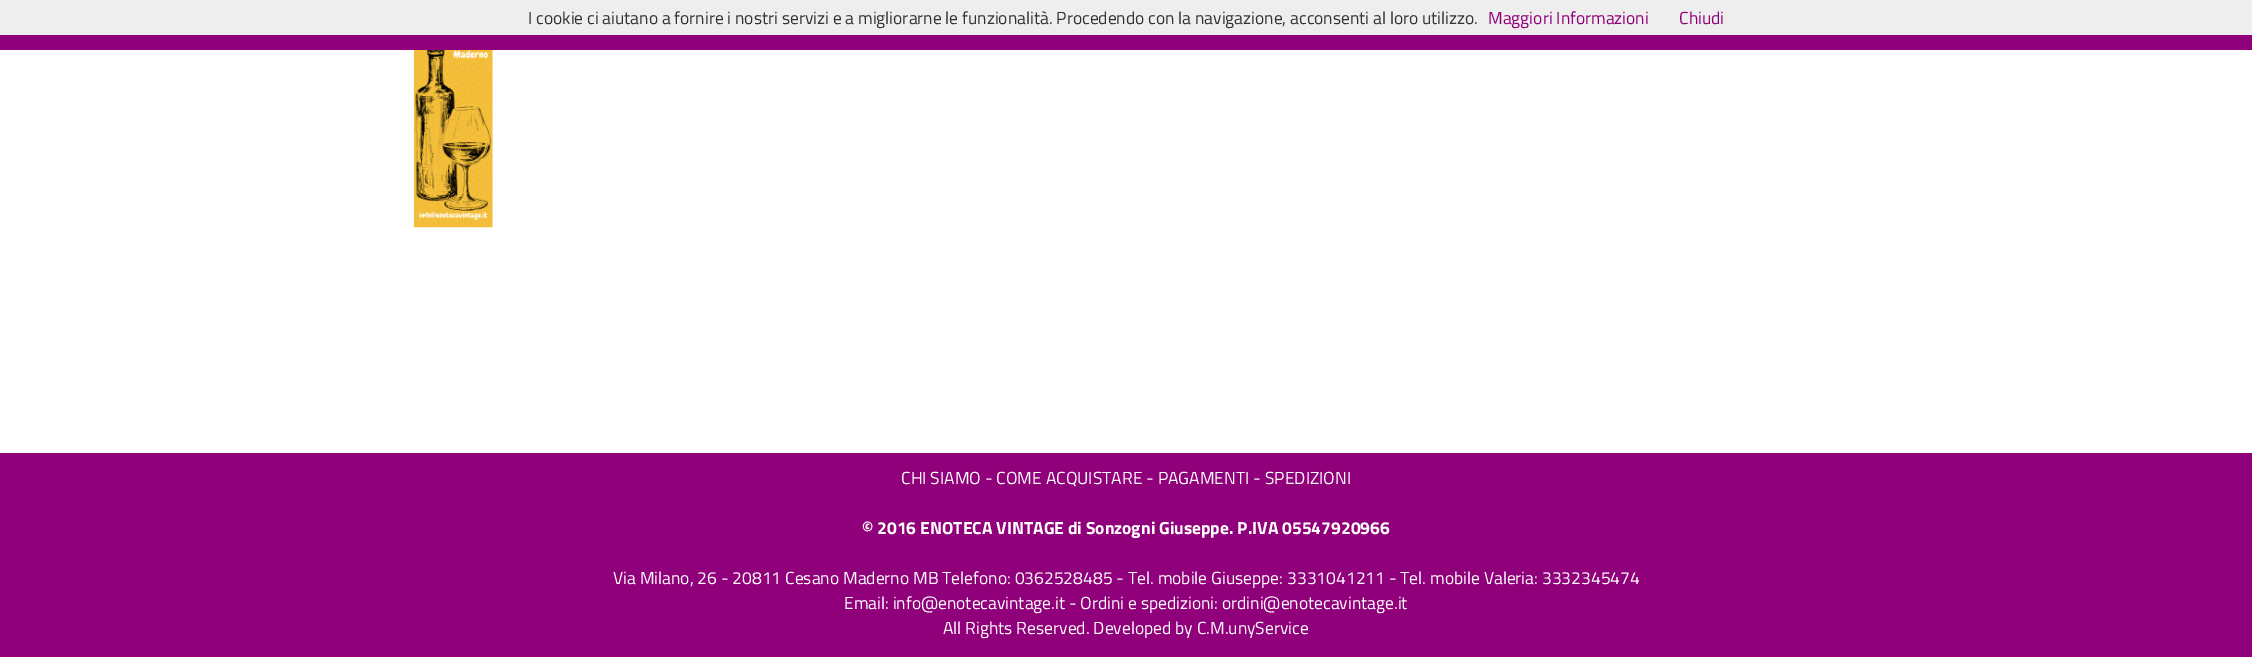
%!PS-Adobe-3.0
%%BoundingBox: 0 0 2252 657
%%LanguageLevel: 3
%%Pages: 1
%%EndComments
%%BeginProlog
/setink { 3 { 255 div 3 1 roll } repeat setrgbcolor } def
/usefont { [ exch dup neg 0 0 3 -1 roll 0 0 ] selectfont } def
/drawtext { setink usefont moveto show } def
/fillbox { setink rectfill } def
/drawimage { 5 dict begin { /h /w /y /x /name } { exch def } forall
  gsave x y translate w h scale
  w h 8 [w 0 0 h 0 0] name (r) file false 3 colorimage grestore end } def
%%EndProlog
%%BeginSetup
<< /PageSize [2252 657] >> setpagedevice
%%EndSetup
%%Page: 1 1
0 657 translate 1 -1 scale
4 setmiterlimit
0 0 2252 657 255 255 255 fillbox
0 0 2252 35 238 238 238 fillbox
(I cookie ci aiutano a fornire i nostri servizi e a migliorarne le funzionalità. Procedendo con la navigazione, acconsenti al loro utilizzo.) 528 24 /TitilliumWeb-Regular 17.5 51 51 51 drawtext
(Maggiori Informazioni) 1488 24 /TitilliumWeb-Regular 17.5 145 0 123 drawtext
(Chiudi) 1679 24 /TitilliumWeb-Regular 17.5 145 0 123 drawtext
0 35 2252 15 145 0 123 fillbox
(assets/img1.rgb) 413 50 80 178 drawimage
0 453 2252 204 145 0 123 fillbox
(CHI SIAMO - COME ACQUISTARE - PAGAMENTI - SPEDIZIONI) 901 484 /TitilliumWeb-Regular 17.5 255 255 255 drawtext
(© 2016 ENOTECA VINTAGE di Sonzogni Giuseppe. P.IVA 05547920966) 862 534 /TitilliumWeb-Bold 17.5 255 255 255 drawtext
(Via Milano, 26 - 20811 Cesano Maderno MB Telefono: 0362528485 - Tel. mobile Giuseppe: 3331041211 - Tel. mobile Valeria: 3332345474) 613 584 /TitilliumWeb-Regular 17.5 255 255 255 drawtext
(Email: info@enotecavintage.it - Ordini e spedizioni: ordini@enotecavintage.it) 844 609 /TitilliumWeb-Regular 17.5 255 255 255 drawtext
(All Rights Reserved. Developed by C.M.unyService) 943 634 /TitilliumWeb-Regular 17.5 255 255 255 drawtext
showpage
%%EOF
